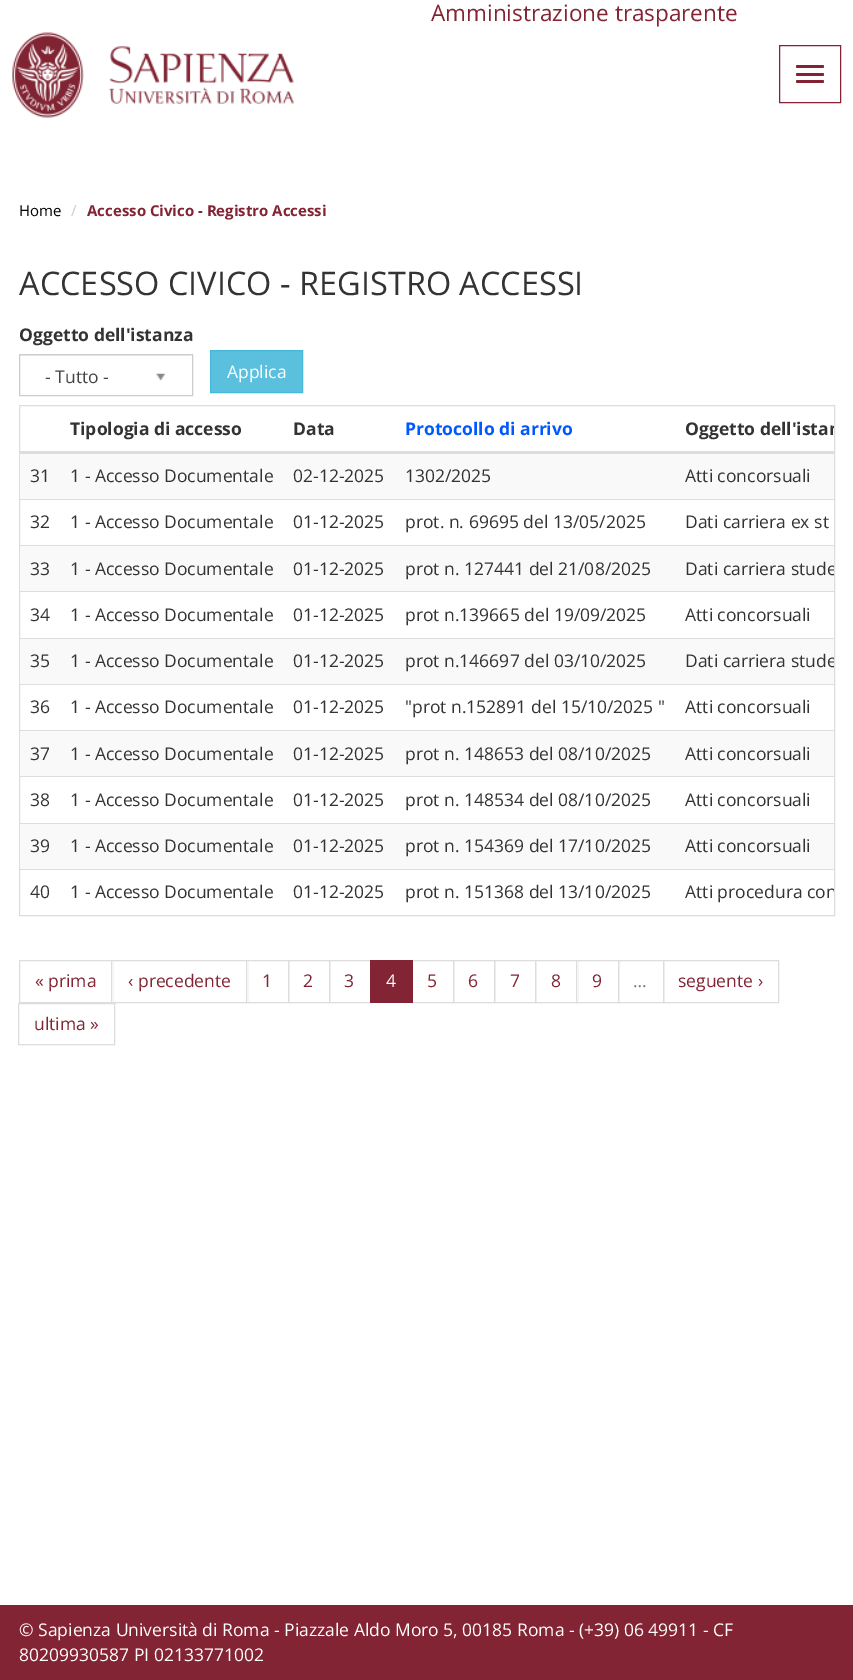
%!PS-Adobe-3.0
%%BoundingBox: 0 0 853 1680
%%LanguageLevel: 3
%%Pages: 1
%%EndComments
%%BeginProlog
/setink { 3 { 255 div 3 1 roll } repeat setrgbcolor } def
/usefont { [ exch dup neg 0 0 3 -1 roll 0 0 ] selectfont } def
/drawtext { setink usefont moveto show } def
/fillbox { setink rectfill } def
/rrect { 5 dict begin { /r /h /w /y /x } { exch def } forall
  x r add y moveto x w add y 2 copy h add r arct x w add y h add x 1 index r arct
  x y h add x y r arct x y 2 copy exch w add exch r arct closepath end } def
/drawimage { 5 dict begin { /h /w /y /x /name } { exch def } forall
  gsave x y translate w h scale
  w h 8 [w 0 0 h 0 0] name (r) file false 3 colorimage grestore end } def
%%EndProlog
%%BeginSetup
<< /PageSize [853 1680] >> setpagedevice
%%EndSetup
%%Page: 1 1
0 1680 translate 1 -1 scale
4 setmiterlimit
0 0 853 1680 255 255 255 fillbox
(Amministrazione trasparente) 431 21 /OpenSans-Regular 22.5 130 36 51 drawtext
(assets/img1.rgb) 12 32 282 86 drawimage
779.5 45.5 61 57 rectstroke
796 65 28 3 1.5 rrect fill
796 73 28 3 1.5 rrect fill
796 80 28 3 1.5 rrect fill
(Home) 19 216 /OpenSans-Regular 15 0 0 0 drawtext
(/) 71 216 /OpenSans-Regular 15 204 204 204 drawtext
(Accesso Civico - Registro Accessi) 87 216 /OpenSans-Bold 15 130 36 51 drawtext
(ACCESSO CIVICO - REGISTRO ACCESSI) 19 295 /OpenSans-Regular 32.5 51 51 51 drawtext
(Oggetto dell'istanza) 19 341 /OpenSans-Bold 17.5 51 51 51 drawtext
20 355 171 1 236 236 236 fillbox
204 204 204 setink
19.5 354.5 173 41 rectstroke
(- Tutto -) 45 383 /OpenSans-Regular 17.5 68 68 68 drawtext
(assets/img2.rgb) 156 373 10 8 drawimage
91 192 222 setink
210.5 350.5 moveto 302.5 350.5 lineto 302.5 392.5 lineto 210.5 392.5 lineto closepath gsave fill grestore
70 184 218 setink
stroke
(Applica) 227 378 /OpenSans-Regular 17.5 255 255 255 drawtext
221 221 221 setink
19.5 405.5 815 510 rectstroke
(Tipologia di accesso) 70 435 /OpenSans-Bold 17.5 51 51 51 drawtext
(Data) 293 435 /OpenSans-Bold 17.5 51 51 51 drawtext
(Protocollo di arrivo) 405 435 /OpenSans-Bold 17.5 0 88 255 drawtext
20 451 814 3 221 221 221 fillbox
gsave
20 406 814 509 rectclip
(Oggetto dell'istan) 685 435 /OpenSans-Bold 17.5 51 51 51 drawtext
grestore
20 454 814 45 249 249 249 fillbox
(31) 30 482 /OpenSans-Regular 17.5 51 51 51 drawtext
(1 - Accesso Documentale) 70 482 /OpenSans-Regular 17.5 51 51 51 drawtext
(02-12-2025) 293 482 /OpenSans-Regular 17.5 51 51 51 drawtext
(1302/2025) 405 482 /OpenSans-Regular 17.5 51 51 51 drawtext
(Atti concorsuali) 685 482 /OpenSans-Regular 17.5 51 51 51 drawtext
(32) 30 528 /OpenSans-Regular 17.5 51 51 51 drawtext
(1 - Accesso Documentale) 70 528 /OpenSans-Regular 17.5 51 51 51 drawtext
(01-12-2025) 293 528 /OpenSans-Regular 17.5 51 51 51 drawtext
(prot. n. 69695 del 13/05/2025) 405 528 /OpenSans-Regular 17.5 51 51 51 drawtext
20 499 814 1 221 221 221 fillbox
(Dati carriera ex st) 685 528 /OpenSans-Regular 17.5 51 51 51 drawtext
20 546 814 45 249 249 249 fillbox
(33) 30 575 /OpenSans-Regular 17.5 51 51 51 drawtext
(1 - Accesso Documentale) 70 575 /OpenSans-Regular 17.5 51 51 51 drawtext
(01-12-2025) 293 575 /OpenSans-Regular 17.5 51 51 51 drawtext
(prot n. 127441 del 21/08/2025) 405 575 /OpenSans-Regular 17.5 51 51 51 drawtext
20 545 814 1 221 221 221 fillbox
gsave
20 406 814 509 rectclip
(Dati carriera stude) 685 575 /OpenSans-Regular 17.5 51 51 51 drawtext
grestore
(34) 30 621 /OpenSans-Regular 17.5 51 51 51 drawtext
(1 - Accesso Documentale) 70 621 /OpenSans-Regular 17.5 51 51 51 drawtext
(01-12-2025) 293 621 /OpenSans-Regular 17.5 51 51 51 drawtext
(prot n.139665 del 19/09/2025) 405 621 /OpenSans-Regular 17.5 51 51 51 drawtext
20 591 814 1 221 221 221 fillbox
(Atti concorsuali) 685 621 /OpenSans-Regular 17.5 51 51 51 drawtext
20 639 814 45 249 249 249 fillbox
(35) 30 667 /OpenSans-Regular 17.5 51 51 51 drawtext
(1 - Accesso Documentale) 70 667 /OpenSans-Regular 17.5 51 51 51 drawtext
(01-12-2025) 293 667 /OpenSans-Regular 17.5 51 51 51 drawtext
(prot n.146697 del 03/10/2025) 405 667 /OpenSans-Regular 17.5 51 51 51 drawtext
20 638 814 1 221 221 221 fillbox
gsave
20 406 814 509 rectclip
(Dati carriera stude) 685 667 /OpenSans-Regular 17.5 51 51 51 drawtext
grestore
(36) 30 713 /OpenSans-Regular 17.5 51 51 51 drawtext
(1 - Accesso Documentale) 70 713 /OpenSans-Regular 17.5 51 51 51 drawtext
(01-12-2025) 293 713 /OpenSans-Regular 17.5 51 51 51 drawtext
("prot n.152891 del 15/10/2025 ") 405 713 /OpenSans-Regular 17.5 51 51 51 drawtext
20 684 814 1 221 221 221 fillbox
(Atti concorsuali) 685 713 /OpenSans-Regular 17.5 51 51 51 drawtext
20 731 814 45 249 249 249 fillbox
(37) 30 760 /OpenSans-Regular 17.5 51 51 51 drawtext
(1 - Accesso Documentale) 70 760 /OpenSans-Regular 17.5 51 51 51 drawtext
(01-12-2025) 293 760 /OpenSans-Regular 17.5 51 51 51 drawtext
(prot n. 148653 del 08/10/2025) 405 760 /OpenSans-Regular 17.5 51 51 51 drawtext
20 730 814 1 221 221 221 fillbox
(Atti concorsuali) 685 760 /OpenSans-Regular 17.5 51 51 51 drawtext
(38) 30 806 /OpenSans-Regular 17.5 51 51 51 drawtext
(1 - Accesso Documentale) 70 806 /OpenSans-Regular 17.5 51 51 51 drawtext
(01-12-2025) 293 806 /OpenSans-Regular 17.5 51 51 51 drawtext
(prot n. 148534 del 08/10/2025) 405 806 /OpenSans-Regular 17.5 51 51 51 drawtext
20 776 814 1 221 221 221 fillbox
(Atti concorsuali) 685 806 /OpenSans-Regular 17.5 51 51 51 drawtext
20 824 814 45 249 249 249 fillbox
(39) 30 852 /OpenSans-Regular 17.5 51 51 51 drawtext
(1 - Accesso Documentale) 70 852 /OpenSans-Regular 17.5 51 51 51 drawtext
(01-12-2025) 293 852 /OpenSans-Regular 17.5 51 51 51 drawtext
(prot n. 154369 del 17/10/2025) 405 852 /OpenSans-Regular 17.5 51 51 51 drawtext
20 823 814 1 221 221 221 fillbox
(Atti concorsuali) 685 852 /OpenSans-Regular 17.5 51 51 51 drawtext
(40) 30 898 /OpenSans-Regular 17.5 51 51 51 drawtext
(1 - Accesso Documentale) 70 898 /OpenSans-Regular 17.5 51 51 51 drawtext
(01-12-2025) 293 898 /OpenSans-Regular 17.5 51 51 51 drawtext
(prot n. 151368 del 13/10/2025) 405 898 /OpenSans-Regular 17.5 51 51 51 drawtext
20 869 814 1 221 221 221 fillbox
gsave
20 406 814 509 rectclip
(Atti procedura con) 685 898 /OpenSans-Regular 17.5 51 51 51 drawtext
grestore
19.5 960.5 93 42 rectstroke
(« prima) 35 987 /OpenSans-Regular 17.5 130 36 51 drawtext
112 961 1 41 255 255 255 fillbox
221 221 221 setink
111.5 960.5 136 42 rectstroke
(‹ precedente) 128 987 /OpenSans-Regular 17.5 130 36 51 drawtext
247 961 1 41 255 255 255 fillbox
221 221 221 setink
246.5 960.5 42 42 rectstroke
(1) 262 987 /OpenSans-Regular 17.5 130 36 51 drawtext
221 221 221 setink
288.5 960.5 41 42 rectstroke
(2) 303 987 /OpenSans-Regular 17.5 130 36 51 drawtext
221 221 221 setink
329.5 960.5 41 42 rectstroke
(3) 344 987 /OpenSans-Regular 17.5 130 36 51 drawtext
221 221 221 setink
411.5 960.5 42 42 rectstroke
370 960 43 43 130 36 51 fillbox
(4) 386 987 /OpenSans-Regular 17.5 255 255 255 drawtext
(5) 427 987 /OpenSans-Regular 17.5 130 36 51 drawtext
221 221 221 setink
453.5 960.5 41 42 rectstroke
(6) 468 987 /OpenSans-Regular 17.5 130 36 51 drawtext
221 221 221 setink
494.5 960.5 41 42 rectstroke
(7) 510 987 /OpenSans-Regular 17.5 130 36 51 drawtext
221 221 221 setink
535.5 960.5 42 42 rectstroke
(8) 551 987 /OpenSans-Regular 17.5 130 36 51 drawtext
577 961 1 41 255 255 255 fillbox
221 221 221 setink
576.5 960.5 42 42 rectstroke
(9) 592 987 /OpenSans-Regular 17.5 130 36 51 drawtext
221 221 221 setink
618.5 960.5 45 42 rectstroke
(…) 633 987 /OpenSans-Regular 17.5 119 119 119 drawtext
221 221 221 setink
663.5 960.5 115 42 rectstroke
(seguente ›) 678 987 /OpenSans-Regular 17.5 130 36 51 drawtext
221 221 221 setink
18.5 1003.5 96 41 rectstroke
(ultima ») 34 1030 /OpenSans-Regular 17.5 130 36 51 drawtext
0 1605 853 75 130 36 51 fillbox
(© Sapienza Università di Roma - Piazzale Aldo Moro 5, 00185 Roma - \(+39\) 06 49911 - CF) 19 1636 /OpenSans-Regular 17.5 255 255 255 drawtext
(80209930587 PI 02133771002) 19 1661 /OpenSans-Regular 17.5 255 255 255 drawtext
showpage
%%EOF
